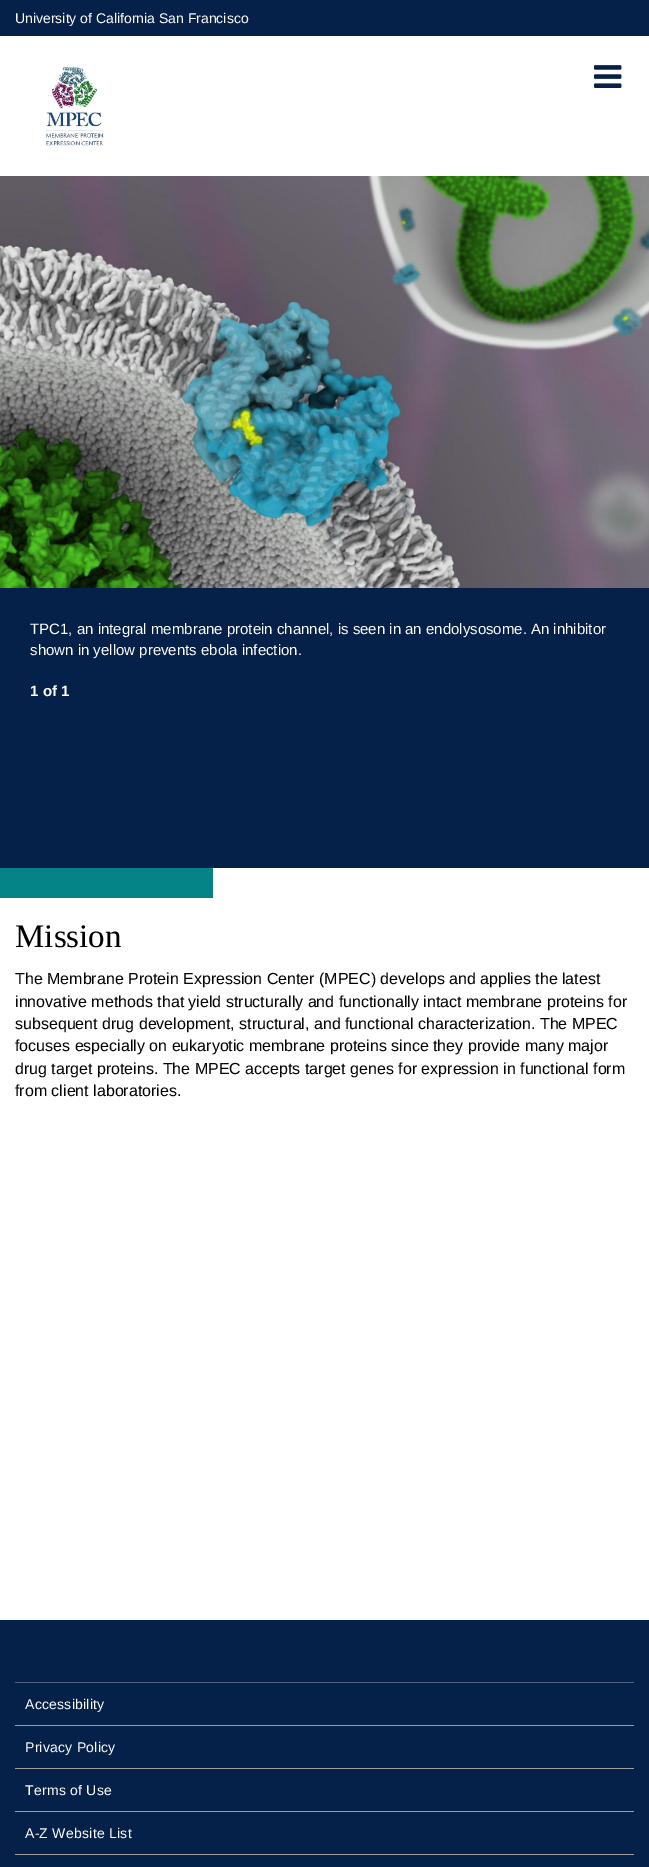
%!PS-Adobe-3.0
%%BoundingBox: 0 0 649 1867
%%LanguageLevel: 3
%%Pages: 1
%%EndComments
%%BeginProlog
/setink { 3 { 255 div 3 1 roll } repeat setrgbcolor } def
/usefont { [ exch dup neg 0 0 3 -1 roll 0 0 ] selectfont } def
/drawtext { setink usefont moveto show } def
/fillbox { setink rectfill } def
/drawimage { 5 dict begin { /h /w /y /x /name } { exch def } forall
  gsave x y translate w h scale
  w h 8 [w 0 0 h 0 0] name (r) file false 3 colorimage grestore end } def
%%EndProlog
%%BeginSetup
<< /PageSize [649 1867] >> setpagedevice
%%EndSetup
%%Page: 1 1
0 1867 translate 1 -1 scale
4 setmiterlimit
0 0 649 1867 255 255 255 fillbox
0 0 649 36 5 32 73 fillbox
(University of California San Francisco) 15 23 /LiberationSans-Regular 14 255 255 255 drawtext
(assets/img1.rgb) 46 67 58 79 drawimage
(assets/img2.rgb) 594 65 28 23 drawimage
(assets/img3.rgb) 0 176 649 412 drawimage
0 588 649 280 5 32 73 fillbox
(TPC1, an integral membrane protein channel, is seen in an endolysosome. An inhibitor) 30 634 /LiberationSans-Regular 15 255 255 255 drawtext
(shown in yellow prevents ebola infection.) 30 655 /LiberationSans-Regular 15 255 255 255 drawtext
(1 of 1) 30 696 /LiberationSans-Bold 15 255 255 255 drawtext
0 868 213 30 5 132 136 fillbox
(Mission) 15 947 /LiberationSerif-Regular 33 0 0 0 drawtext
(The Membrane Protein Expression Center \(MPEC\) develops and applies the latest) 15 984 /LiberationSans-Regular 16 0 0 0 drawtext
(innovative methods that yield structurally and functionally intact membrane proteins for) 15 1007 /LiberationSans-Regular 16 0 0 0 drawtext
(subsequent drug development, structural, and functional characterization. The MPEC) 15 1029 /LiberationSans-Regular 16 0 0 0 drawtext
(focuses especially on eukaryotic membrane proteins since they provide many major) 15 1051 /LiberationSans-Regular 16 0 0 0 drawtext
(drug target proteins. The MPEC accepts target genes for expression in functional form) 15 1074 /LiberationSans-Regular 16 0 0 0 drawtext
(from client laboratories.) 15 1096 /LiberationSans-Regular 16 0 0 0 drawtext
0 1620 649 247 5 32 73 fillbox
15 1682 619 1 80 99 128 fillbox
15 1725 619 1 157 157 157 fillbox
/LiberationSans-Regular 14 usefont
255 255 255 setink
25 1709 moveto 0.25 0 (Accessibility) ashow
15 1768 619 1 157 157 157 fillbox
255 255 255 setink
25 1752 moveto 0.25 0 (Privacy Policy) ashow
15 1811 619 1 157 157 157 fillbox
255 255 255 setink
25 1795 moveto 0.25 0 (Terms of Use) ashow
15 1854 619 1 157 157 157 fillbox
255 255 255 setink
25 1838 moveto 0.25 0 (A-Z Website List) ashow
showpage
%%EOF
